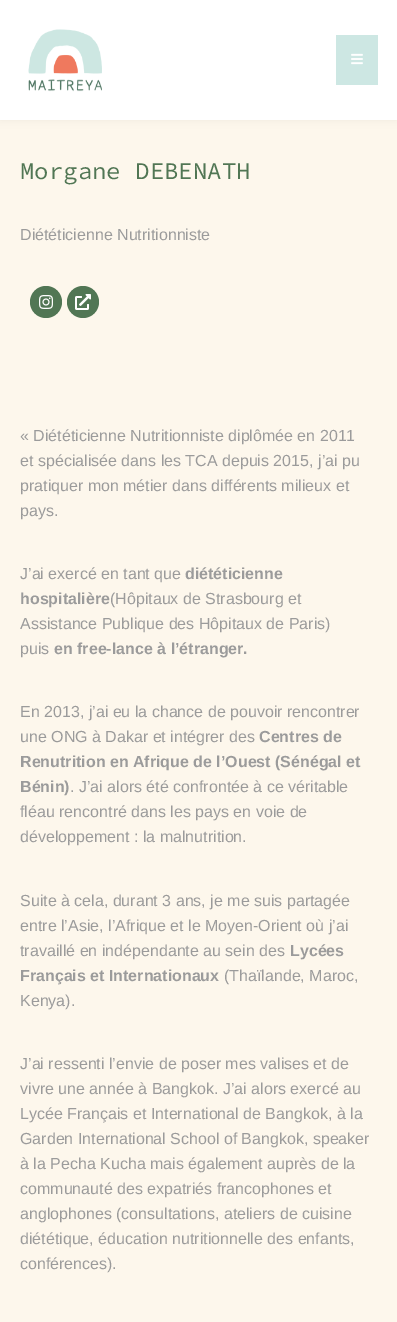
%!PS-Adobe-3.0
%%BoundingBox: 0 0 397 1322
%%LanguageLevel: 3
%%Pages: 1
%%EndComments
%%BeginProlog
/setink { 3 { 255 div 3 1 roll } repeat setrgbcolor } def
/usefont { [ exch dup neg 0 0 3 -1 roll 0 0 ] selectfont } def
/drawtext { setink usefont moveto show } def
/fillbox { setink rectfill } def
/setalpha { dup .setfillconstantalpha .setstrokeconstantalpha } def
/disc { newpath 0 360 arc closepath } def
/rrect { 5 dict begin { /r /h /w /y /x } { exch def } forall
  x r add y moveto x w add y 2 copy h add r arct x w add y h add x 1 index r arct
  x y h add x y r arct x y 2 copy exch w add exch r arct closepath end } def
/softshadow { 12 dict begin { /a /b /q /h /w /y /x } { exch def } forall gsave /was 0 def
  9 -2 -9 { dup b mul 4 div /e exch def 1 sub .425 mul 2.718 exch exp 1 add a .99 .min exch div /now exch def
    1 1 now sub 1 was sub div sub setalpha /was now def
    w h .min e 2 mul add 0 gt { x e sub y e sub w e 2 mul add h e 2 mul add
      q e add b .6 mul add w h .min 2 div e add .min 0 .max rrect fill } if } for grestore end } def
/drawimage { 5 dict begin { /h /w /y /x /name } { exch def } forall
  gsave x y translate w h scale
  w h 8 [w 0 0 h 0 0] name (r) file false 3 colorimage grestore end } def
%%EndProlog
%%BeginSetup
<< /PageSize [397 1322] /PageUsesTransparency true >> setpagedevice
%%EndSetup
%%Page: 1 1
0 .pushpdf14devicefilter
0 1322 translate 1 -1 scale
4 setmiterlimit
0 0 397 1322 253 247 236 fillbox
0 0 0 setink
0 0 397 120 0 5 0.05 softshadow
0 0 397 120 255 255 255 fillbox
(assets/img1.rgb) 28 29 74 63 drawimage
336 35 42 50 205 231 227 fillbox
(assets/img2.rgb) 351 53 12 12 drawimage
(Morgane DEBENATH) 20 179 /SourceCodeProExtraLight-Regular 24 81 118 84 drawtext
(Diététicienne Nutritionniste) 20 240 /LiberationSans-Regular 16 155 155 155 drawtext
81 118 84 setink
46 302 16 disc fill
(assets/img3.rgb) 39 295 14 14 drawimage
83 302 16 disc fill
(assets/img4.rgb) 75 294 16 16 drawimage
(« Diététicienne Nutritionniste diplômée en 2011) 20 441 /LiberationSans-Regular 16 155 155 155 drawtext
(et spécialisée dans les TCA depuis 2015, j’ai pu) 20 466 /LiberationSans-Regular 16 155 155 155 drawtext
(pratiquer mon métier dans différents milieux et) 20 491 /LiberationSans-Regular 16 155 155 155 drawtext
(pays.) 20 516 /LiberationSans-Regular 16 155 155 155 drawtext
(J’ai exercé en tant que) 20 579 /LiberationSans-Regular 16 155 155 155 drawtext
(diététicienne) 185 579 /LiberationSans-Bold 16 155 155 155 drawtext
(hospitalière) 20 604 /LiberationSans-Bold 16 155 155 155 drawtext
(\(Hôpitaux de Strasbourg et) 110 604 /LiberationSans-Regular 16 155 155 155 drawtext
(Assistance Publique des Hôpitaux de Paris\)) 20 629 /LiberationSans-Regular 16 155 155 155 drawtext
(puis) 20 654 /LiberationSans-Regular 16 155 155 155 drawtext
(en free-lance à l’étranger.) 54 654 /LiberationSans-Bold 16 155 155 155 drawtext
(En 2013, j’ai eu la chance de pouvoir rencontrer) 20 717 /LiberationSans-Regular 16 155 155 155 drawtext
(une ONG à Dakar et intégrer des) 20 742 /LiberationSans-Regular 16 155 155 155 drawtext
(Centres de) 259 742 /LiberationSans-Bold 16 155 155 155 drawtext
(Renutrition en Afrique de l’Ouest \(Sénégal et) 20 767 /LiberationSans-Bold 16 155 155 155 drawtext
(Bénin\)) 20 792 /LiberationSans-Bold 16 155 155 155 drawtext
(. J’ai alors été confrontée à ce véritable) 70 792 /LiberationSans-Regular 16 155 155 155 drawtext
(fléau rencontré dans les pays en voie de) 20 817 /LiberationSans-Regular 16 155 155 155 drawtext
(développement : la malnutrition.) 20 842 /LiberationSans-Regular 16 155 155 155 drawtext
(Suite à cela, durant 3 ans, je me suis partagée) 20 906 /LiberationSans-Regular 16 155 155 155 drawtext
(entre l’Asie, l’Afrique et le Moyen-Orient où j’ai) 20 931 /LiberationSans-Regular 16 155 155 155 drawtext
(travaillé en indépendante au sein des) 20 956 /LiberationSans-Regular 16 155 155 155 drawtext
(Lycées) 290 956 /LiberationSans-Bold 16 155 155 155 drawtext
(Français et Internationaux) 20 981 /LiberationSans-Bold 16 155 155 155 drawtext
(\(Thaïlande, Maroc,) 224 981 /LiberationSans-Regular 16 155 155 155 drawtext
(Kenya\).) 20 1006 /LiberationSans-Regular 16 155 155 155 drawtext
(J’ai ressenti l’envie de poser mes valises et de) 20 1069 /LiberationSans-Regular 16 155 155 155 drawtext
(vivre une année à Bangkok. J’ai alors exercé au) 20 1094 /LiberationSans-Regular 16 155 155 155 drawtext
(Lycée Français et International de Bangkok, à la) 20 1119 /LiberationSans-Regular 16 155 155 155 drawtext
(Garden International School of Bangkok, speaker) 20 1144 /LiberationSans-Regular 16 155 155 155 drawtext
(à la Pecha Kucha mais également auprès de la) 20 1169 /LiberationSans-Regular 16 155 155 155 drawtext
(communauté des expatriés francophones et) 20 1194 /LiberationSans-Regular 16 155 155 155 drawtext
(anglophones \(consultations, ateliers de cuisine) 20 1219 /LiberationSans-Regular 16 155 155 155 drawtext
(diététique, éducation nutritionnelle des enfants,) 20 1244 /LiberationSans-Regular 16 155 155 155 drawtext
(conférences\).) 20 1269 /LiberationSans-Regular 16 155 155 155 drawtext
.poppdf14devicefilter showpage
%%EOF
